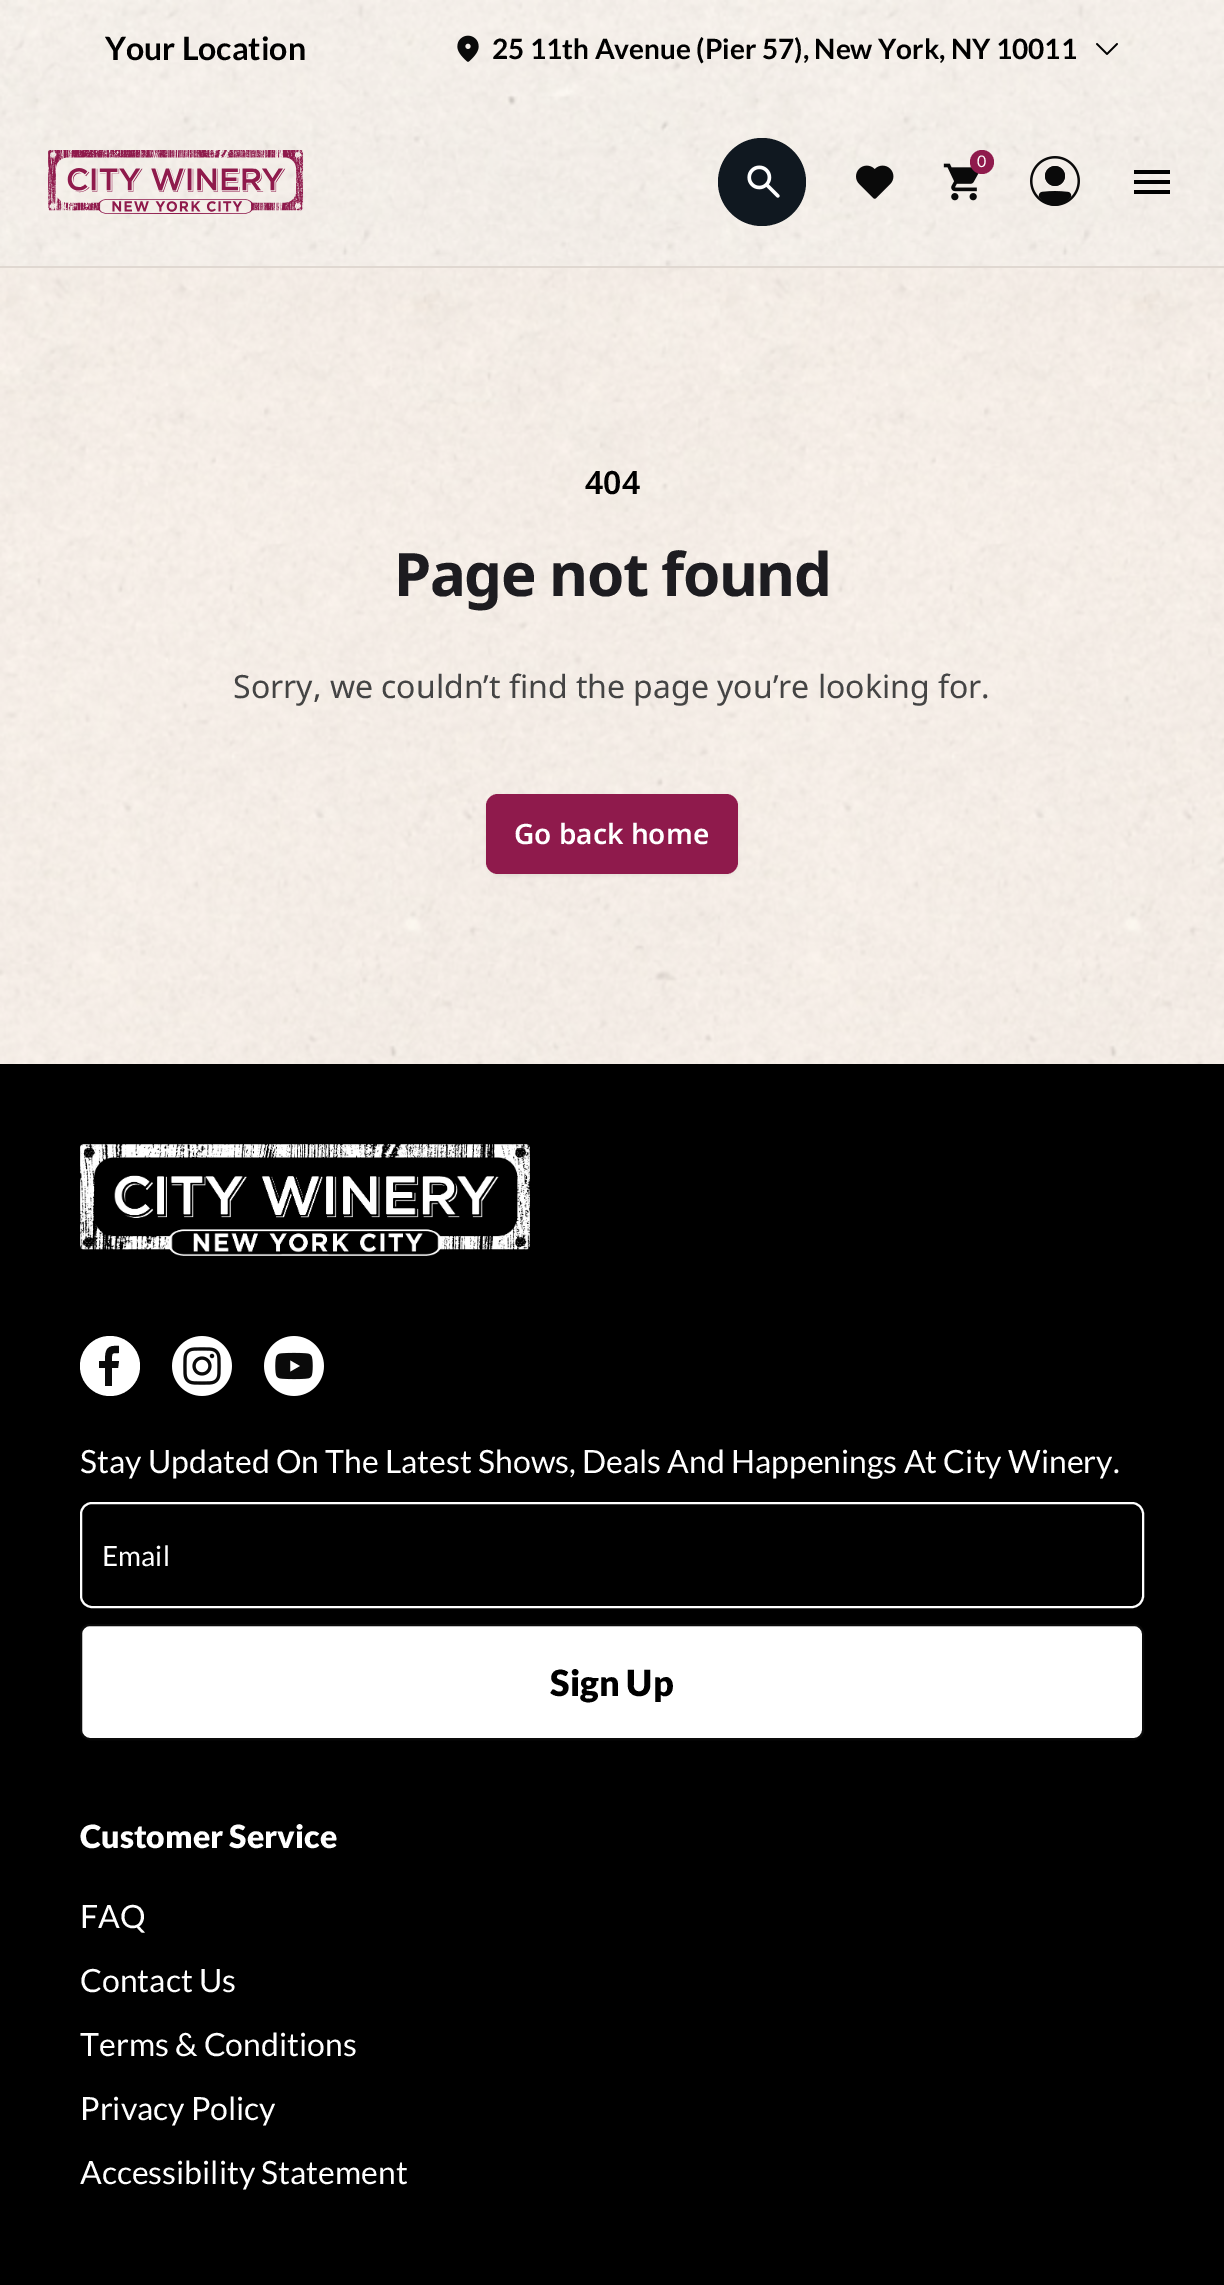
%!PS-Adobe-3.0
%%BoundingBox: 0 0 1224 2285
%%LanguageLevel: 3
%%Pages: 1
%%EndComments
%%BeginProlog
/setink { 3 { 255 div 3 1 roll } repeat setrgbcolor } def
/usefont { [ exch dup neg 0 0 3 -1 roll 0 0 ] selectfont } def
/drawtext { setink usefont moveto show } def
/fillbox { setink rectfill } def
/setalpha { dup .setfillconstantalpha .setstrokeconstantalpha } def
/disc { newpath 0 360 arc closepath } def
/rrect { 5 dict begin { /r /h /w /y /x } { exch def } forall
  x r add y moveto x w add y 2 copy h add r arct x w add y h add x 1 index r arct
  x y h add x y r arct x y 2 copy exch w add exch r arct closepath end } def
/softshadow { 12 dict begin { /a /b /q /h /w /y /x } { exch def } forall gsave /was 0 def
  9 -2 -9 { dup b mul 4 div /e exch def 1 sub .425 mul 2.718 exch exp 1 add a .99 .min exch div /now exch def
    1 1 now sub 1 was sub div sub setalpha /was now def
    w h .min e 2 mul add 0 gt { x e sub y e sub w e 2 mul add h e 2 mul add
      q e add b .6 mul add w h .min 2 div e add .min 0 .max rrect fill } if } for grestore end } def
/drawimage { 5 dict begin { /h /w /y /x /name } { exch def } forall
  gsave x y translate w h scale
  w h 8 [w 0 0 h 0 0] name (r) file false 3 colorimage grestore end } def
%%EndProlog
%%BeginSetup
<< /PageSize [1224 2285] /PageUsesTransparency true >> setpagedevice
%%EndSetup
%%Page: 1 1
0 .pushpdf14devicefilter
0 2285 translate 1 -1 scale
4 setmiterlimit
0 0 1224 2285 249 244 240 fillbox
(assets/img1.rgb) 0 268 1224 796 drawimage
0 0 1224 266 249 247 246 fillbox
(assets/img2.rgb) 0 0 1224 266 drawimage
0 266 1224 2 224 216 209 fillbox
(Your Location) 105 60 /Lato-Bold 32 0 0 0 drawtext
(assets/img3.rgb) 457 35 22 27 drawimage
(25 11th Avenue \(Pier 57\), New York, NY 10011) 492 59 /Lato-Bold 28 0 0 0 drawtext
(assets/img4.rgb) 1096 43 22 12 drawimage
(assets/img5.rgb) 48 150 256 64 drawimage
16 24 32 setink
762 182 44 disc fill
(assets/img6.rgb) 747 165 33 33 drawimage
(assets/img7.rgb) 856 165 38 34 drawimage
(assets/img8.rgb) 943 163 36 38 drawimage
143 26 76 setink
982 162 12 disc fill
(0) 977 167 /Lato-Regular 16 255 255 255 drawtext
(assets/img9.rgb) 1030 156 50 50 drawimage
0 0 0 setink
1134 194 moveto 1170 194 lineto 1170 190 lineto 1134 190 lineto closepath 1134 184 moveto 1170 184 lineto 1170 180 lineto 1134 180 lineto closepath 1134 170 moveto 1134 174 lineto 1170 174 lineto 1170 170 lineto closepath fill
(404) 585 494 /NotoSans-SemiBold 32 0 0 0 drawtext
/NotoSans-Bold 60 usefont
29 28 32 setink
394 596 moveto -1.5 0 (Page not found) ashow
(Sorry, we couldn’t find the page you’re looking for.) 233 698 /NotoSans-Regular 32 68 68 68 drawtext
0 0 0 setink
486 796 252 80 12 2 0.05 softshadow
143 26 76 setink
486 794 252 80 12 rrect fill
(Go back home) 514 844 /NotoSans-SemiBold 28 255 255 255 drawtext
0 1064 1224 1221 0 0 0 fillbox
(assets/img10.rgb) 80 1144 450 112 drawimage
255 255 255 setink
110 1366 30 disc fill
10 10 10 setink
112 1386 moveto 112 1368 lineto 118 1368 lineto 119 1361 lineto 112 1361 lineto 112 1353 111 1353 119 1353 curveto 119 1346 lineto 107 1345 105 1349 105 1361 curveto 99 1361 lineto 99 1368 lineto 105 1368 lineto 105 1386 lineto closepath fill
(assets/img11.rgb) 172 1336 60 60 drawimage
(assets/img12.rgb) 264 1336 60 60 drawimage
(Stay Updated On The Latest Shows, Deals And Happenings At City Winery.) 80 1473 /Lato-Regular 32 255 255 255 drawtext
2 setlinewidth
81 1503 1062 104 11 rrect stroke
(Email) 102 1566 /Lato-Regular 28 255 255 255 drawtext
81 1625 1062 114 9 rrect gsave fill grestore
10 10 10 setink
stroke
(Sign Up) 550 1696 /Lato-Black 36 0 0 0 drawtext
(Customer Service) 80 1848 /Lato-Black 32 255 255 255 drawtext
(FAQ) 80 1928 /Lato-Regular 32 255 255 255 drawtext
(Contact Us) 80 1992 /Lato-Regular 32 255 255 255 drawtext
(Terms & Conditions) 80 2056 /Lato-Regular 32 255 255 255 drawtext
(Privacy Policy) 80 2120 /Lato-Regular 32 255 255 255 drawtext
(Accessibility Statement) 80 2184 /Lato-Regular 32 255 255 255 drawtext
.poppdf14devicefilter showpage
%%EOF
